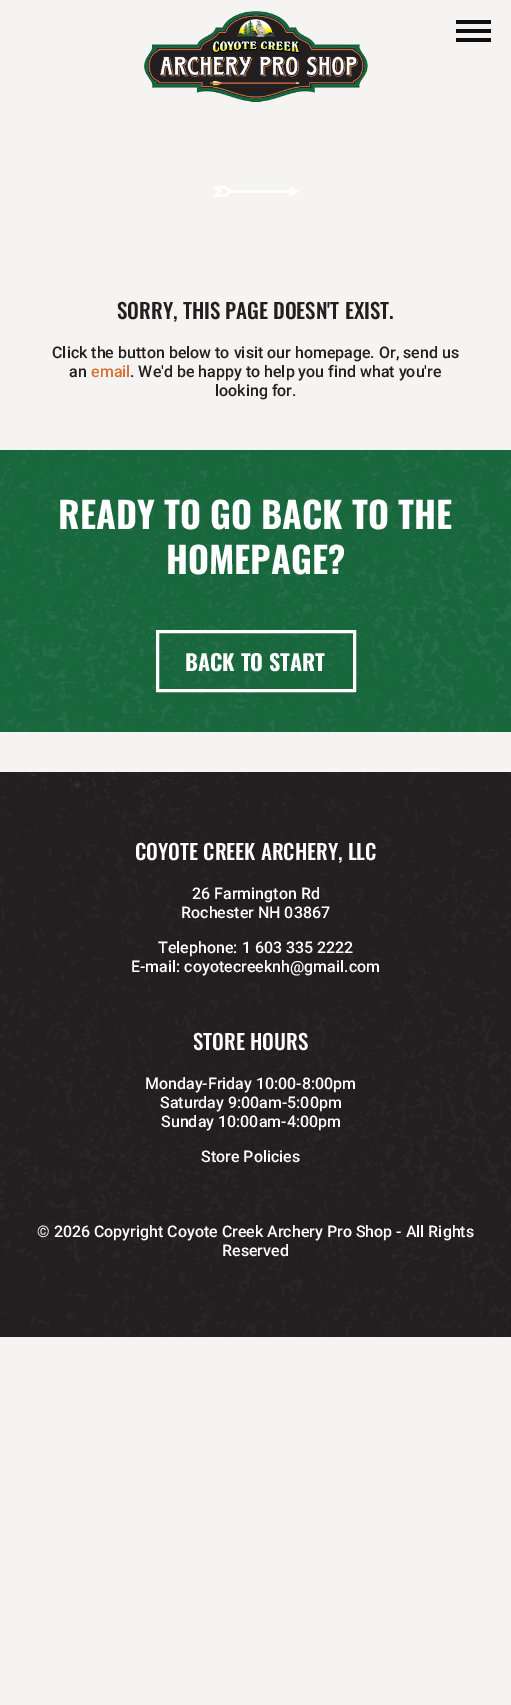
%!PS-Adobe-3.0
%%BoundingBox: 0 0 511 1705
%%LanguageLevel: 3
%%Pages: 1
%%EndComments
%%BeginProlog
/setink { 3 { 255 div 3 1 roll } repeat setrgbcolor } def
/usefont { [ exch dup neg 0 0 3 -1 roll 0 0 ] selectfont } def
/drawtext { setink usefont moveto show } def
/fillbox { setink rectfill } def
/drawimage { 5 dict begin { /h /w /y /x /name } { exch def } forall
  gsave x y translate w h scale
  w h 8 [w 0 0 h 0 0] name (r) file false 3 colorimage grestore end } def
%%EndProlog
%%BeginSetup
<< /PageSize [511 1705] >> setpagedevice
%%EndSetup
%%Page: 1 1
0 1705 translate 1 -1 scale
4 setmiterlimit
0 0 511 1705 246 244 243 fillbox
(assets/img1.rgb) 144 11 224 92 drawimage
(assets/img2.rgb) 214 186 85 11 drawimage
456 20 35 4 14 14 14 fillbox
456 29 35 4 14 14 14 fillbox
456 38 35 4 14 14 14 fillbox
(SORRY, THIS PAGE DOESN'T EXIST.) 117 319 /Oswald-Medium 21 35 31 32 drawtext
(Click the button below to visit our homepage. Or, send us) 52 358 /Roboto-Medium 16 35 31 32 drawtext
(an) 69 377 /Roboto-Medium 16 35 31 32 drawtext
(email) 91 377 /Roboto-Medium 16 215 114 58 drawtext
(. We'd be happy to help you find what you're) 130 377 /Roboto-Medium 16 35 31 32 drawtext
(looking for.) 215 396 /Roboto-Medium 16 35 31 32 drawtext
0 450 511 282 24 103 61 fillbox
(assets/img3.rgb) 0 450 511 282 drawimage
(READY TO GO BACK TO THE) 58 529 /Oswald-Bold 36 255 255 255 drawtext
(HOMEPAGE?) 166 574 /Oswald-Bold 36 255 255 255 drawtext
3 setlinewidth
157.5 631.5 197 59 rectstroke
(BACK TO START) 185 671 /Oswald-Bold 22 255 255 255 drawtext
0 772 511 565 35 31 32 fillbox
(assets/img4.rgb) 0 772 511 565 drawimage
(COYOTE CREEK ARCHERY, LLC) 135 860 /Oswald-Medium 21 255 255 255 drawtext
(26 Farmington Rd) 192 899 /Roboto-Medium 16 255 255 255 drawtext
(Rochester NH 03867) 181 918 /Roboto-Medium 16 255 255 255 drawtext
(Telephone: 1 603 335 2222) 158 953 /Roboto-Medium 16 255 255 255 drawtext
(E-mail: coyotecreeknh@gmail.com) 131 972 /Roboto-Medium 16 255 255 255 drawtext
(STORE HOURS) 193 1050 /Oswald-Medium 21 255 255 255 drawtext
(Monday-Friday 10:00-8:00pm) 145 1089 /Roboto-Medium 16 255 255 255 drawtext
(Saturday 9:00am-5:00pm) 160 1108 /Roboto-Medium 16 255 255 255 drawtext
(Sunday 10:00am-4:00pm) 161 1127 /Roboto-Medium 16 255 255 255 drawtext
(Store Policies) 201 1162 /Roboto-Medium 16 255 255 255 drawtext
(© 2026 Copyright Coyote Creek Archery Pro Shop - All Rights) 37 1237 /Roboto-Medium 16 255 255 255 drawtext
(Reserved) 222 1256 /Roboto-Medium 16 255 255 255 drawtext
showpage
%%EOF
